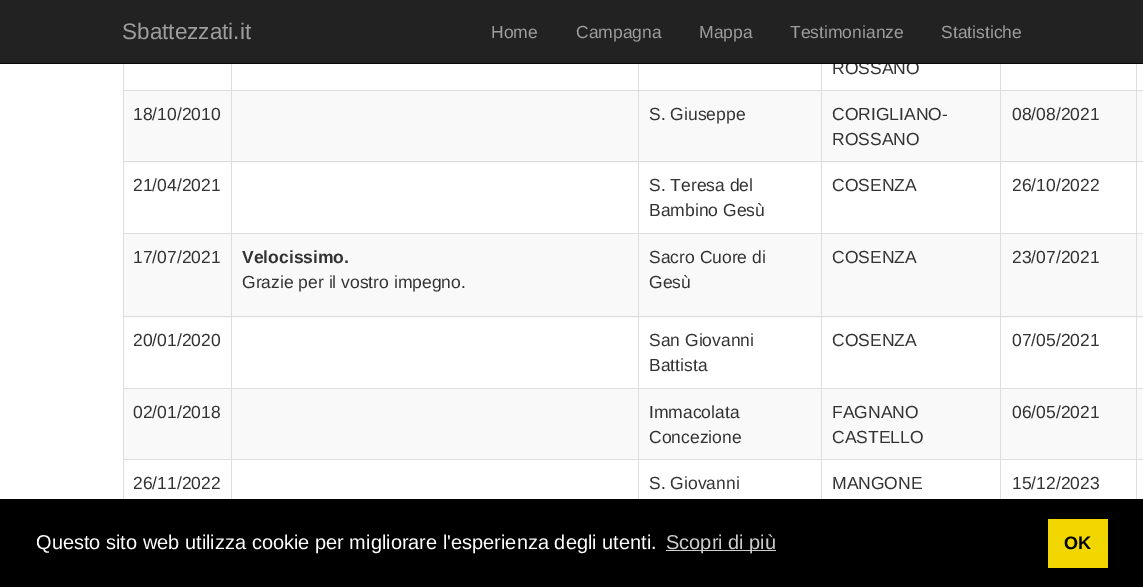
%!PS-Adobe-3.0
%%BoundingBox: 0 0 1143 587
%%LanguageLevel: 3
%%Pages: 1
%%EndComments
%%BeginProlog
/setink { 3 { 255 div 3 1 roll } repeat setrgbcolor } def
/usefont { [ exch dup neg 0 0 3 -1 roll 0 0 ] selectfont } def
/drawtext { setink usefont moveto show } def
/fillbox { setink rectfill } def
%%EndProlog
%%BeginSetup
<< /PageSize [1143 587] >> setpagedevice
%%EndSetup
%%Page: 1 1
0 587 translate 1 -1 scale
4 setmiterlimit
0 0 1143 587 255 255 255 fillbox
(ROSSANO) 832 74 /LiberationSans-Regular 17.5 51 51 51 drawtext
0 0 1143 63 34 34 34 fillbox
0 63 1143 1 8 8 8 fillbox
(Sbattezzati.it) 122 39 /LiberationSans-Regular 22.5 157 157 157 drawtext
(Home) 491 38 /LiberationSans-Regular 17.5 157 157 157 drawtext
(Campagna) 576 38 /LiberationSans-Regular 17.5 157 157 157 drawtext
(Mappa) 699 38 /LiberationSans-Regular 17.5 157 157 157 drawtext
(Testimonianze) 790 38 /LiberationSans-Regular 17.5 157 157 157 drawtext
(Statistiche) 941 38 /LiberationSans-Regular 17.5 157 157 157 drawtext
123 64 1 435 221 221 221 fillbox
1136 90 7 1 221 221 221 fillbox
124 91 1019 72 249 249 249 fillbox
1136 161 7 1 221 221 221 fillbox
1136 233 7 1 221 221 221 fillbox
124 234 1019 84 249 249 249 fillbox
1136 316 7 1 221 221 221 fillbox
1136 388 7 1 221 221 221 fillbox
124 389 1019 70 249 249 249 fillbox
1136 459 7 1 221 221 221 fillbox
1136 459 1 40 221 221 221 fillbox
1000 459 138 1 221 221 221 fillbox
1136 388 1 72 221 221 221 fillbox
1000 388 138 1 221 221 221 fillbox
1136 316 1 73 221 221 221 fillbox
1000 316 138 1 221 221 221 fillbox
1136 233 1 85 221 221 221 fillbox
1000 233 138 1 221 221 221 fillbox
1136 161 1 73 221 221 221 fillbox
1000 161 138 1 221 221 221 fillbox
1136 90 1 73 221 221 221 fillbox
1000 90 138 1 221 221 221 fillbox
1000 459 1 40 221 221 221 fillbox
821 459 180 1 221 221 221 fillbox
1000 388 1 72 221 221 221 fillbox
821 388 180 1 221 221 221 fillbox
1000 316 1 73 221 221 221 fillbox
821 316 180 1 221 221 221 fillbox
1000 233 1 85 221 221 221 fillbox
821 233 180 1 221 221 221 fillbox
1000 161 1 73 221 221 221 fillbox
821 161 180 1 221 221 221 fillbox
1000 90 1 73 221 221 221 fillbox
821 90 180 1 221 221 221 fillbox
821 459 1 40 221 221 221 fillbox
638 459 185 1 221 221 221 fillbox
821 388 1 72 221 221 221 fillbox
638 388 185 1 221 221 221 fillbox
821 316 1 73 221 221 221 fillbox
638 316 185 1 221 221 221 fillbox
821 233 1 85 221 221 221 fillbox
638 233 185 1 221 221 221 fillbox
821 161 1 73 221 221 221 fillbox
638 161 185 1 221 221 221 fillbox
821 90 1 73 221 221 221 fillbox
638 90 185 1 221 221 221 fillbox
638 459 1 40 221 221 221 fillbox
231 459 408 1 221 221 221 fillbox
638 388 1 72 221 221 221 fillbox
231 388 408 1 221 221 221 fillbox
638 316 1 73 221 221 221 fillbox
231 316 408 1 221 221 221 fillbox
638 233 1 85 221 221 221 fillbox
231 233 408 1 221 221 221 fillbox
638 161 1 73 221 221 221 fillbox
231 161 408 1 221 221 221 fillbox
638 90 1 73 221 221 221 fillbox
231 90 408 1 221 221 221 fillbox
231 459 1 40 221 221 221 fillbox
123 459 110 1 221 221 221 fillbox
231 388 1 72 221 221 221 fillbox
123 388 110 1 221 221 221 fillbox
231 316 1 73 221 221 221 fillbox
123 316 110 1 221 221 221 fillbox
231 233 1 85 221 221 221 fillbox
123 233 110 1 221 221 221 fillbox
231 161 1 73 221 221 221 fillbox
123 161 110 1 221 221 221 fillbox
231 90 1 73 221 221 221 fillbox
123 90 110 1 221 221 221 fillbox
231 64 1 27 221 221 221 fillbox
638 64 1 27 221 221 221 fillbox
821 64 1 27 221 221 221 fillbox
1000 64 1 27 221 221 221 fillbox
1136 64 1 27 221 221 221 fillbox
(18/10/2010) 133 120 /LiberationSans-Regular 17.5 51 51 51 drawtext
(S. Giuseppe) 649 120 /LiberationSans-Regular 17.5 51 51 51 drawtext
(CORIGLIANO-) 832 120 /LiberationSans-Regular 17.5 51 51 51 drawtext
(ROSSANO) 832 145 /LiberationSans-Regular 17.5 51 51 51 drawtext
(08/08/2021) 1012 120 /LiberationSans-Regular 17.5 51 51 51 drawtext
(21/04/2021) 133 191 /LiberationSans-Regular 17.5 51 51 51 drawtext
(S. Teresa del) 649 191 /LiberationSans-Regular 17.5 51 51 51 drawtext
(Bambino Gesù) 649 216 /LiberationSans-Regular 17.5 51 51 51 drawtext
(COSENZA) 832 191 /LiberationSans-Regular 17.5 51 51 51 drawtext
(26/10/2022) 1012 191 /LiberationSans-Regular 17.5 51 51 51 drawtext
(17/07/2021) 133 263 /LiberationSans-Regular 17.5 51 51 51 drawtext
(Velocissimo.) 242 263 /LiberationSans-Bold 17.5 51 51 51 drawtext
(Grazie per il vostro impegno.) 242 288 /LiberationSans-Regular 17.5 51 51 51 drawtext
(Sacro Cuore di) 649 263 /LiberationSans-Regular 17.5 51 51 51 drawtext
(Gesù) 649 288 /LiberationSans-Regular 17.5 51 51 51 drawtext
(COSENZA) 832 263 /LiberationSans-Regular 17.5 51 51 51 drawtext
(23/07/2021) 1012 263 /LiberationSans-Regular 17.5 51 51 51 drawtext
(20/01/2020) 133 346 /LiberationSans-Regular 17.5 51 51 51 drawtext
(San Giovanni) 649 346 /LiberationSans-Regular 17.5 51 51 51 drawtext
(Battista) 649 371 /LiberationSans-Regular 17.5 51 51 51 drawtext
(COSENZA) 832 346 /LiberationSans-Regular 17.5 51 51 51 drawtext
(07/05/2021) 1012 346 /LiberationSans-Regular 17.5 51 51 51 drawtext
(02/01/2018) 133 418 /LiberationSans-Regular 17.5 51 51 51 drawtext
(Immacolata) 649 418 /LiberationSans-Regular 17.5 51 51 51 drawtext
(Concezione) 649 443 /LiberationSans-Regular 17.5 51 51 51 drawtext
(FAGNANO) 832 418 /LiberationSans-Regular 17.5 51 51 51 drawtext
(CASTELLO) 832 443 /LiberationSans-Regular 17.5 51 51 51 drawtext
(06/05/2021) 1012 418 /LiberationSans-Regular 17.5 51 51 51 drawtext
(26/11/2022) 133 489 /LiberationSans-Regular 17.5 51 51 51 drawtext
(S. Giovanni) 649 489 /LiberationSans-Regular 17.5 51 51 51 drawtext
(MANGONE) 832 489 /LiberationSans-Regular 17.5 51 51 51 drawtext
(15/12/2023) 1012 489 /LiberationSans-Regular 17.5 51 51 51 drawtext
0 499 1143 88 0 0 0 fillbox
(Questo sito web utilizza cookie per migliorare l'esperienza degli utenti.) 36 549 /LiberationSans-Regular 20 255 255 255 drawtext
666 550 110 1 204 204 204 fillbox
(Scopri di più) 666 549 /LiberationSans-Regular 20 204 204 204 drawtext
1048 519 60 49 241 214 0 fillbox
(OK) 1064 549 /LiberationSans-Bold 18 0 0 0 drawtext
showpage
%%EOF
